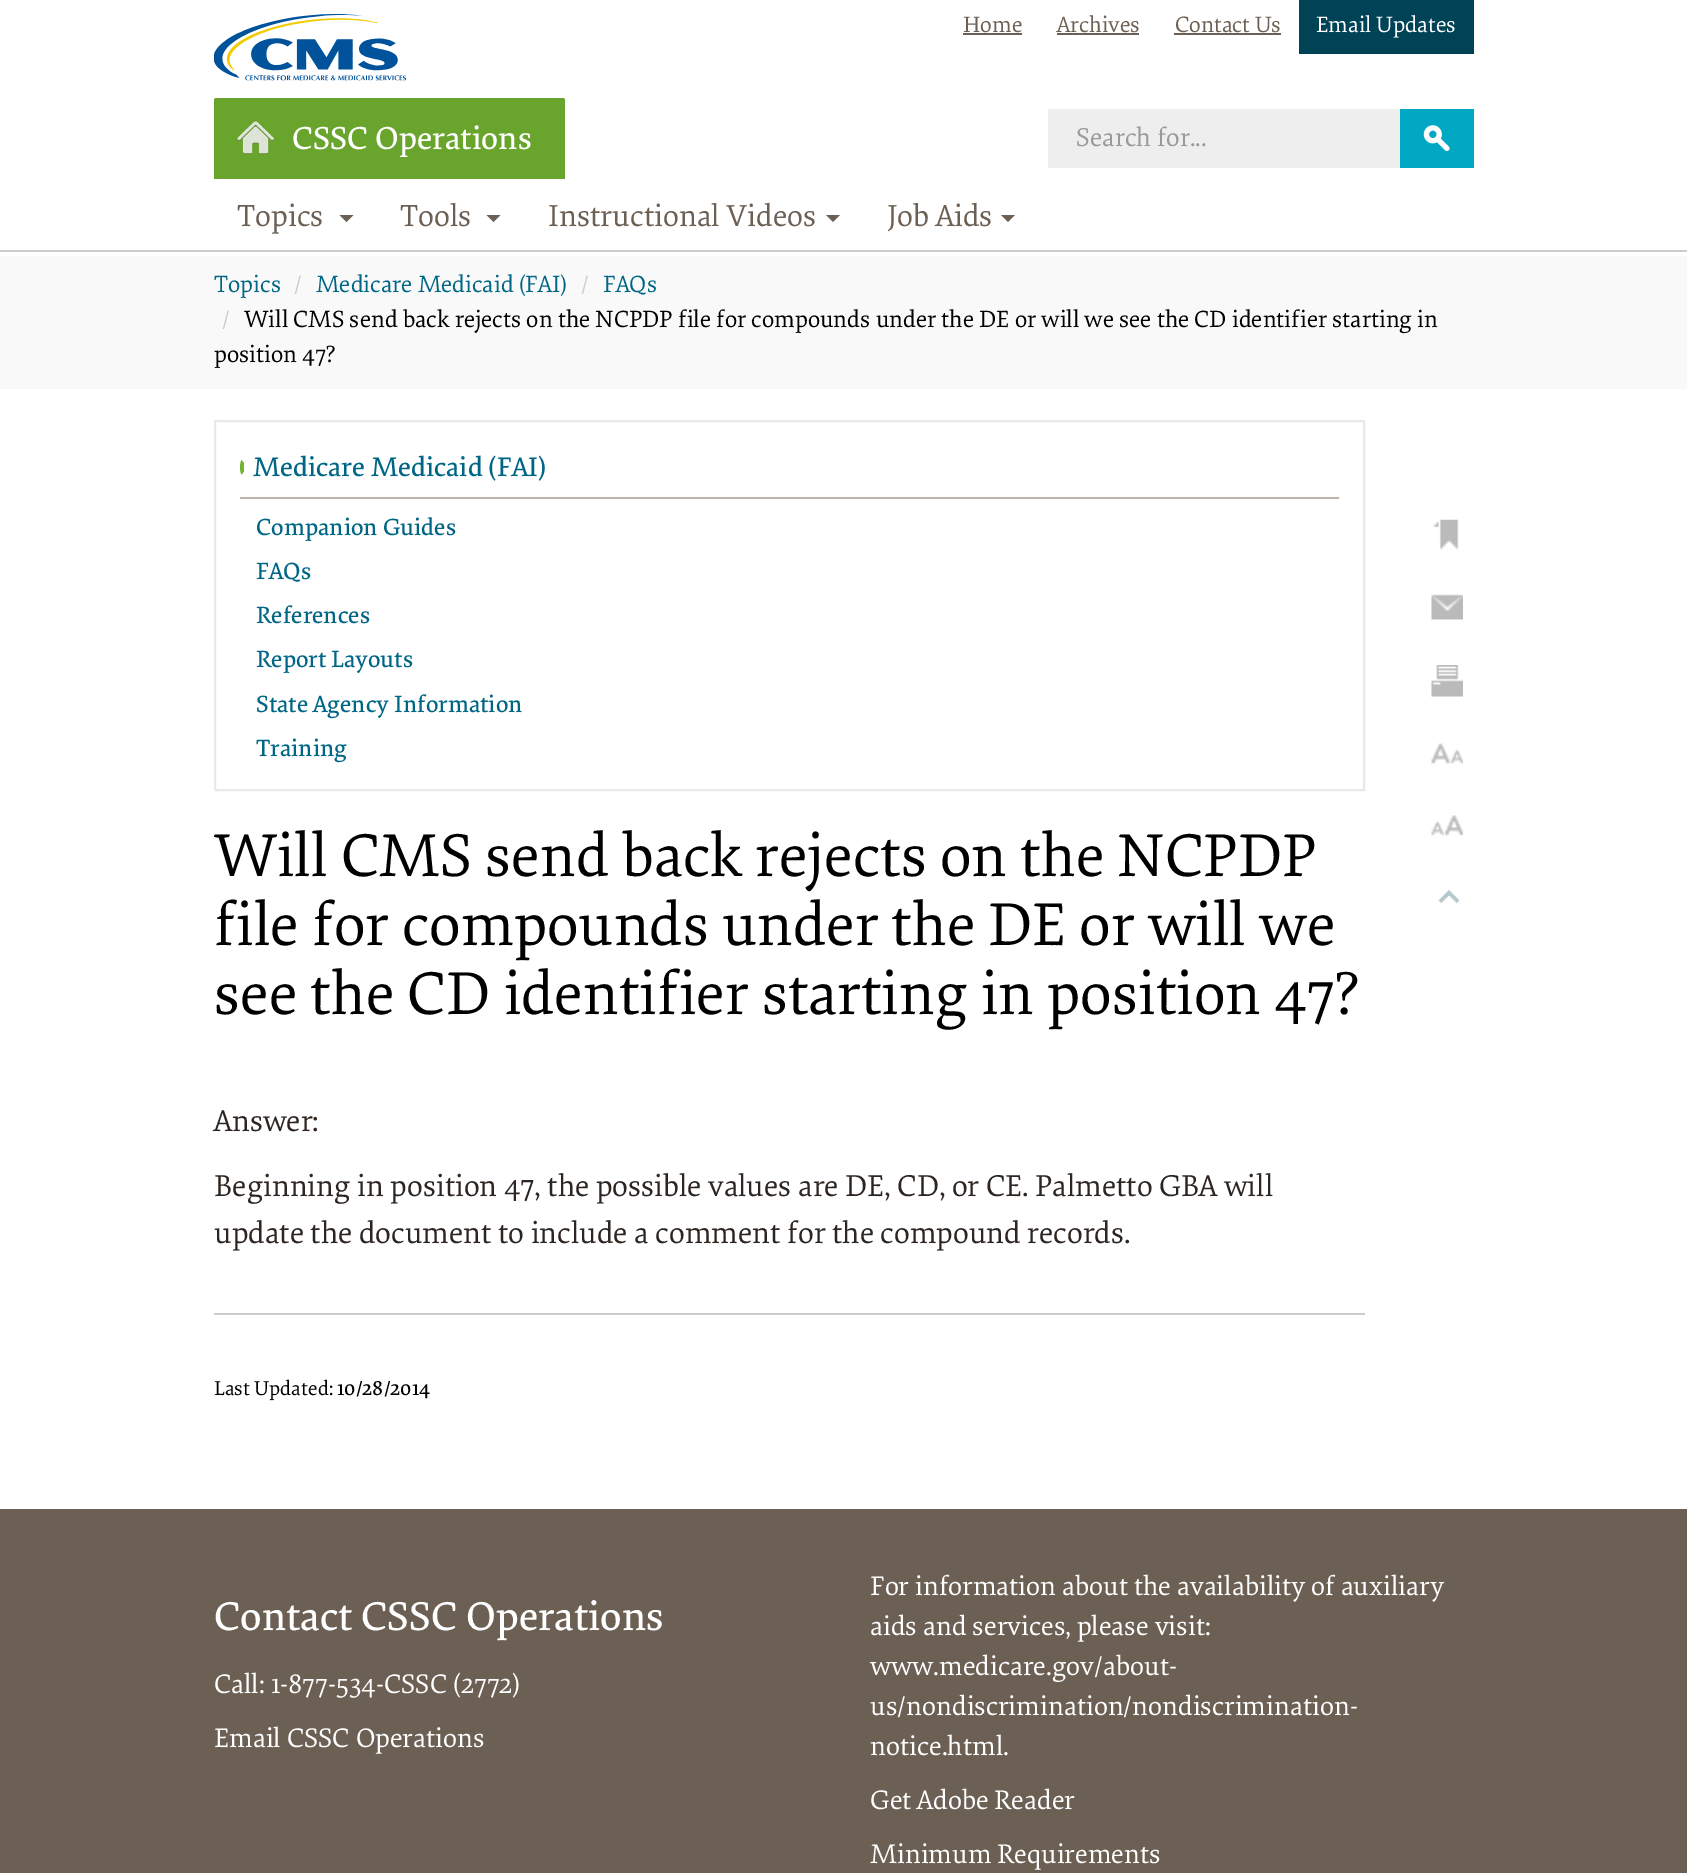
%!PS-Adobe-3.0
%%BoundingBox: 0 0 1687 1873
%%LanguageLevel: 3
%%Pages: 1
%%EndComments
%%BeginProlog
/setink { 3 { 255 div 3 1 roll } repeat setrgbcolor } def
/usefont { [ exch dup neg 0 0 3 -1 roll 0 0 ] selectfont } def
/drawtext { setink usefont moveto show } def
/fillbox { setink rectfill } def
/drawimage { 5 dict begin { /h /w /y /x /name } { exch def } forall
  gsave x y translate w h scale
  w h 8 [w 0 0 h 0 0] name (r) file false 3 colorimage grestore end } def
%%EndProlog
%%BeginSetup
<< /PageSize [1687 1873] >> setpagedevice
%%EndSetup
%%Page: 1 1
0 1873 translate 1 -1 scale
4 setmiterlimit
0 0 1687 1873 255 255 255 fillbox
0 250 1687 2 204 204 204 fillbox
(assets/img1.rgb) 214 14 192 67 drawimage
(Home) 963 32 /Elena-Regular 23.25 108 96 84 drawtext
963 33 59 2 108 96 84 fillbox
(Archives) 1057 32 /Elena-Regular 23.25 108 96 84 drawtext
1057 33 82 2 108 96 84 fillbox
(Contact Us) 1175 32 /Elena-Regular 23.25 108 96 84 drawtext
1174 33 107 2 108 96 84 fillbox
1299 0 175 54 0 67 87 fillbox
(Email Updates) 1316 32 /Elena-Regular 23.25 255 255 255 drawtext
105 164 45 setink
216 98 moveto 563 98 lineto 564 98 565 99 565 100 curveto 565 179 lineto 214 179 lineto 214 100 lineto 214 99 215 98 216 98 curveto closepath fill
(assets/img2.rgb) 237 121 37 34 drawimage
(CSSC Operations) 292 149 /Elena-Medium 33.25 255 255 255 drawtext
1048 109 352 59 238 238 238 fillbox
(Search for...) 1076 146 /Elena-Regular 27 153 153 153 drawtext
1400 109 74 59 0 168 195 fillbox
(assets/img3.rgb) 1423 125 27 26 drawimage
(Topics) 237 226 /Elena-Regular 31.75 108 96 84 drawtext
339.5 215 moveto 353.5 215 lineto 346.5 222 lineto closepath fill
(Tools) 400 226 /Elena-Regular 31.75 108 96 84 drawtext
486.5 215 moveto 500.5 215 lineto 493.5 222 lineto closepath fill
(Instructional Videos) 548 226 /Elena-Regular 31.75 108 96 84 drawtext
826 215 moveto 840 215 lineto 833 222 lineto closepath fill
(Job Aids) 887 226 /Elena-Regular 31.75 108 96 84 drawtext
1001 215 moveto 1015 215 lineto 1008 222 lineto closepath fill
0 256 1687 133 249 249 249 fillbox
(Topics) 214 292 /Elena-Regular 24.5 0 102 133 drawtext
(/) 294 292 /Elena-Regular 24.5 204 204 204 drawtext
(Medicare Medicaid \(FAI\)) 316 292 /Elena-Regular 24.5 0 102 133 drawtext
(/) 581 292 /Elena-Regular 24.5 204 204 204 drawtext
(FAQs) 603 292 /Elena-Regular 24.5 0 102 133 drawtext
(/) 222 327 /Elena-Regular 24.5 204 204 204 drawtext
(Will CMS send back rejects on the NCPDP file for compounds under the DE or will we see the CD identifier starting in) 244 327 /Elena-Regular 24.5 0 0 0 drawtext
(position 47?) 214 362 /Elena-Regular 24.5 0 0 0 drawtext
233 233 233 setink
2 setlinewidth
215 421 1149 369 rectstroke
240 497 1099 2 188 180 172 fillbox
114 180 49 setink
241.5 460 moveto 244 463 lineto 244 471.5 lineto 241.5 474.5 lineto 239.5 471 239.5 463.5 241.5 460 curveto closepath fill
(Medicare Medicaid \(FAI\)) 253 476 /Elena-Medium 28 0 102 133 drawtext
(Companion Guides) 256 535 /Elena-Medium 24.5 0 102 133 drawtext
(FAQs) 256 579 /Elena-Medium 24.5 0 102 133 drawtext
(References) 256 623 /Elena-Medium 24.5 0 102 133 drawtext
(Report Layouts) 256 667 /Elena-Medium 24.5 0 102 133 drawtext
(State Agency Information) 256 712 /Elena-Medium 24.5 0 102 133 drawtext
(Training) 256 756 /Elena-Medium 24.5 0 102 133 drawtext
(Will CMS send back rejects on the NCPDP) 214 876 /Elena-Regular 63 0 0 0 drawtext
(file for compounds under the DE or will we) 214 945 /Elena-Regular 63 0 0 0 drawtext
(see the CD identifier starting in position 47?) 214 1014 /Elena-Regular 63 0 0 0 drawtext
(Answer:) 214 1131 /Elena-Regular 31.5 44 37 33 drawtext
(Beginning in position 47, the possible values are DE, CD, or CE. Palmetto GBA will) 214 1196 /Elena-Regular 31.5 44 37 33 drawtext
(update the document to include a comment for the compound records.) 214 1243 /Elena-Regular 31.5 44 37 33 drawtext
214 1313 1151 2 204 204 204 fillbox
(Last Updated:) 214 1395 /Elena-Regular 21 0 0 0 drawtext
(10/28/2014) 337 1395 /Elena-Medium 21 0 0 0 drawtext
(assets/img4.rgb) 1433 519 26 31 drawimage
(assets/img5.rgb) 1431 594 32 26 drawimage
(assets/img6.rgb) 1431 665 32 32 drawimage
(assets/img7.rgb) 1431 743 32 21 drawimage
(assets/img8.rgb) 1431 815 32 21 drawimage
(assets/img9.rgb) 1438 890 22 14 drawimage
0 1509 1687 364 108 96 84 fillbox
(Contact CSSC Operations) 214 1630 /Elena-Medium 42 255 255 255 drawtext
(Call: 1-877-534-CSSC \(2772\)) 214 1693 /Elena-Regular 28 255 255 255 drawtext
(Email CSSC Operations) 214 1747 /Elena-Regular 28 255 255 255 drawtext
(For information about the availability of auxiliary) 870 1595 /Elena-Regular 28 255 255 255 drawtext
(aids and services, please visit:) 870 1635 /Elena-Regular 28 255 255 255 drawtext
(www.medicare.gov/about-) 870 1675 /Elena-Regular 28 255 255 255 drawtext
(us/nondiscrimination/nondiscrimination-) 870 1715 /Elena-Regular 28 255 255 255 drawtext
(notice.html.) 870 1755 /Elena-Regular 28 255 255 255 drawtext
(Get Adobe Reader) 870 1809 /Elena-Regular 28 255 255 255 drawtext
(Minimum Requirements) 870 1863 /Elena-Regular 28 255 255 255 drawtext
showpage
%%EOF
